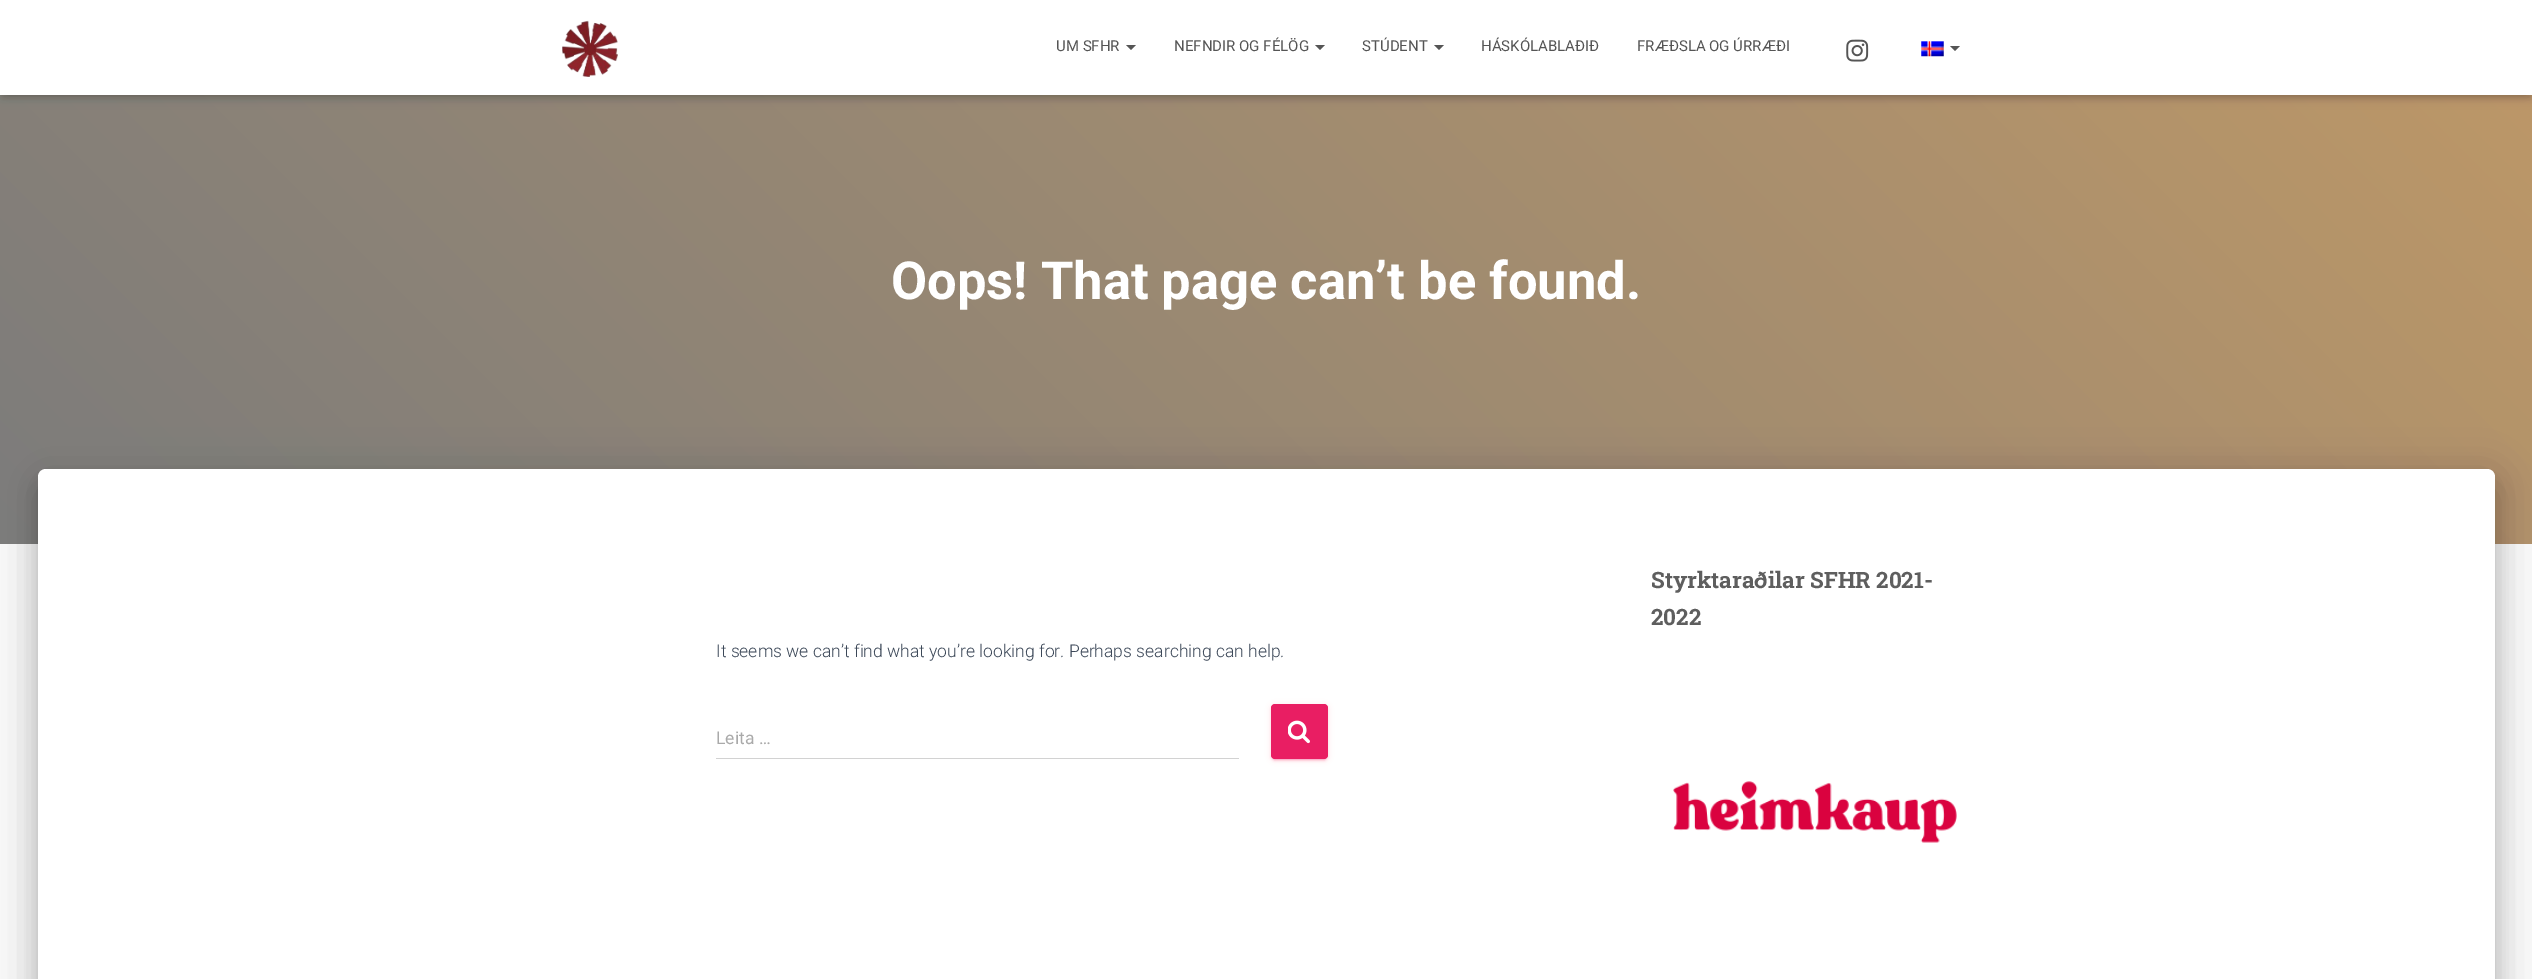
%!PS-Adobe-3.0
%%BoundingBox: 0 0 2532 979
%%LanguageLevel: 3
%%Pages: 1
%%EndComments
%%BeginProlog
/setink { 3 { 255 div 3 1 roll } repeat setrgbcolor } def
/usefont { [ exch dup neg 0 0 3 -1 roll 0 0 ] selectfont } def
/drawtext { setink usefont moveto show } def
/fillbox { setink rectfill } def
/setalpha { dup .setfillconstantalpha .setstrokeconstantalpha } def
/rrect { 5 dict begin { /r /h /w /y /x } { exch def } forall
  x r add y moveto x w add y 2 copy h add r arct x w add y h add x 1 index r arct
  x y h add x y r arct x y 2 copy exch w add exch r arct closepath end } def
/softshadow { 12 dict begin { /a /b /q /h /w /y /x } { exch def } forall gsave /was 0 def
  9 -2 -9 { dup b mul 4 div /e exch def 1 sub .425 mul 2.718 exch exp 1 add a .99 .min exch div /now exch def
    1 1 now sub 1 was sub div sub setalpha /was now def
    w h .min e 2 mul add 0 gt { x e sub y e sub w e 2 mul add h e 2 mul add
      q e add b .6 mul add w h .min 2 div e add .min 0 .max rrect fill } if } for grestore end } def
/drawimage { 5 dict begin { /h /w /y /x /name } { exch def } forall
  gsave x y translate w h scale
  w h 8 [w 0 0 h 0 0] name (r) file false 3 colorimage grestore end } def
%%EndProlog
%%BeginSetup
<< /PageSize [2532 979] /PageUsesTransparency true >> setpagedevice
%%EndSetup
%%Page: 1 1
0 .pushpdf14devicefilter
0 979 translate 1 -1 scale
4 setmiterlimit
0 0 2532 979 249 249 249 fillbox
gsave 0 95 moveto 2532 95 lineto 2532 544 lineto 0 544 lineto closepath clip newpath
<< /ShadingType 2 /ColorSpace /DeviceRGB /Coords [497 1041 2035 -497] /Extend [true true] /Function << /FunctionType 2 /Domain [0 1] /C0 [0.486 0.486 0.486] /C1 [0.745 0.596 0.404] /N 1 >> >> shfill grestore
0 0 0 setink
3 8 2527 90 0 3 0.1 softshadow
0 1 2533 95 0 6 0.12 softshadow
8 9 2517 80 0 6 0.42 softshadow
0 0 2532 95 255 255 255 fillbox
(assets/img1.rgb) 562 20 56 57 drawimage
(UM SFHR) 1056 51 /Roboto-Regular 15 85 85 85 drawtext
1126 45 moveto 1136 45 lineto 1131 50 lineto closepath fill
(NEFNDIR OG FÉLÖG) 1174 51 /Roboto-Regular 15 85 85 85 drawtext
1315 45 moveto 1325 45 lineto 1320 50 lineto closepath fill
(STÚDENT) 1362 51 /Roboto-Regular 15 85 85 85 drawtext
1434 45 moveto 1444 45 lineto 1439 50 lineto closepath fill
(HÁSKÓLABLAÐIÐ) 1481 51 /Roboto-Regular 15 85 85 85 drawtext
(FRÆÐSLA OG ÚRRÆÐI) 1637 51 /Roboto-Regular 15 85 85 85 drawtext
(assets/img2.rgb) 1846 39 23 23 drawimage
(assets/img3.rgb) 1921 41 23 16 drawimage
1950 46 moveto 1960 46 lineto 1955 51 lineto closepath fill
(Oops! That page can’t be found.) 891 299 /Roboto-Bold 52.5 255 255 255 drawtext
0 0 0 setink
44 485 2445 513 1 6 0.2 softshadow
31 470 2470 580 14 19 0.12 softshadow
35 486 2463 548 10 15 0.14 softshadow
255 255 255 setink
46 469 moveto 2487 469 lineto 2491.5 469 2495 472.5 2495 477 curveto 2495 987 lineto 38 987 lineto 38 477 lineto 38 472.5 41.5 469 46 469 curveto closepath fill
(Styrktaraðilar SFHR 2021-) 1651 588 /RobotoSlab-Bold 22.5 94 94 94 drawtext
(2022) 1651 625 /RobotoSlab-Bold 22.5 94 94 94 drawtext
(assets/img4.rgb) 1673 781 284 62 drawimage
(It seems we can’t find what you’re looking for. Perhaps searching can help.) 716 657 /Roboto-Light 17.5 60 72 88 drawtext
(Leita …) 716 744 /Roboto-Regular 17.5 170 170 170 drawtext
716 758 523 1 210 210 210 fillbox
233 30 99 setink
1271 705 57 55 4 3 0.12 softshadow
1274 710 51 50 1 0.5 0.2 softshadow
1271 706 57 55 4 1 0.14 softshadow
1271 704 57 55 4 rrect fill
(assets/img5.rgb) 1288 720 22 24 drawimage
.poppdf14devicefilter showpage
%%EOF
